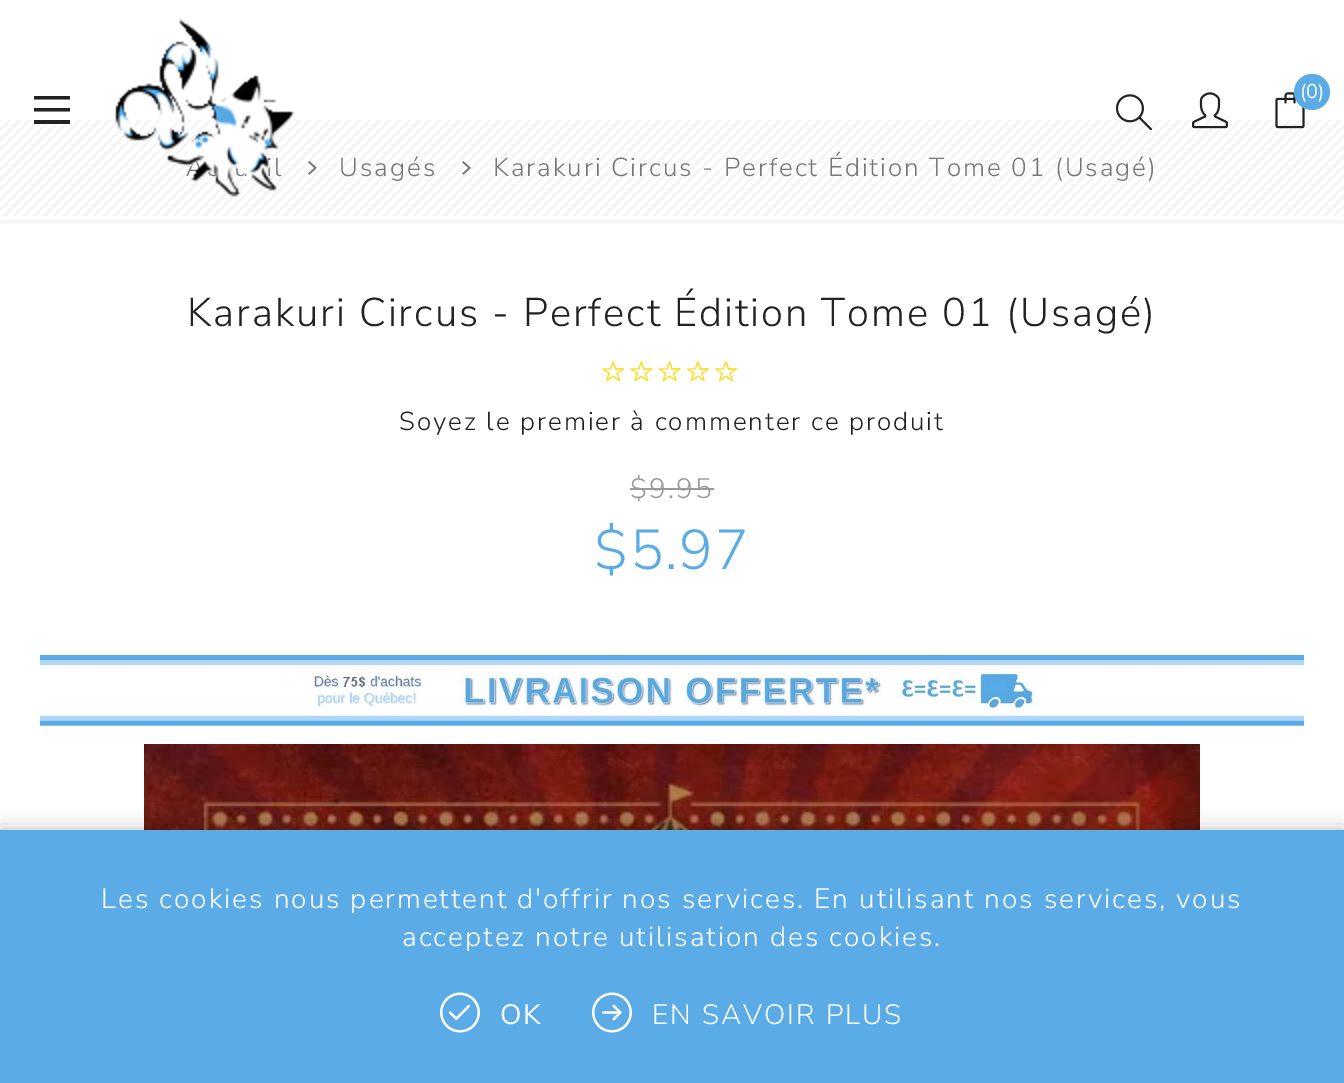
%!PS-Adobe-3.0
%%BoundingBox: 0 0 1344 1083
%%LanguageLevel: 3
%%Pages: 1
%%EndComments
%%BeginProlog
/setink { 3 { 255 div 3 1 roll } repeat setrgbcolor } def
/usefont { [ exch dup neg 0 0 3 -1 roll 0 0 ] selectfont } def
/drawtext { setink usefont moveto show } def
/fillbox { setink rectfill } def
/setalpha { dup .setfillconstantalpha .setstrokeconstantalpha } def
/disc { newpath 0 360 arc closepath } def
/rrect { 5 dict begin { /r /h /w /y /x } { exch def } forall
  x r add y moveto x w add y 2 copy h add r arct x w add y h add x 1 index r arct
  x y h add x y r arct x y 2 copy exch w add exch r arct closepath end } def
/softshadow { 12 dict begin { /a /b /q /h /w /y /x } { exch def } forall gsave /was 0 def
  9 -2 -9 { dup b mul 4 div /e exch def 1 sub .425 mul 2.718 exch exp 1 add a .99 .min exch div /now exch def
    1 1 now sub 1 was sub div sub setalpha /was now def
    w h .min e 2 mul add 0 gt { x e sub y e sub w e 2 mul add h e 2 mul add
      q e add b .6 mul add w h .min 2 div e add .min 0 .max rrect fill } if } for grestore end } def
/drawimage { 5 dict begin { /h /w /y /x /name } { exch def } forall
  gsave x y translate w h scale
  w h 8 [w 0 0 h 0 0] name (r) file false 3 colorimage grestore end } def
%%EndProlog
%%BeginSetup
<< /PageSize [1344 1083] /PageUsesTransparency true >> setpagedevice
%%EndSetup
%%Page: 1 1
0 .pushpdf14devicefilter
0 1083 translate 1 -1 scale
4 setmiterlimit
0 0 1344 1083 255 255 255 fillbox
(assets/img5.rgb) 0 120 1344 96 drawimage
(assets/img6.rgb) 308 161 9 14 drawimage
(assets/img7.rgb) 462 161 9 14 drawimage
gsave
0 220 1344 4 rectclip
0 0 0 setink
0 0 1344 220 0 5 0.1 softshadow
grestore
34 34 34 setink
34 96 moveto 34 99.5 lineto 70 99.5 lineto 70 96 lineto closepath 34 111.5 moveto 70 111.5 lineto 70 108 lineto 34 108 lineto closepath 34 124 moveto 70 124 lineto 70 120 lineto 34 120 lineto closepath fill
/NunitoSans-Light 26 usefont
119 119 119 setink
274 176 moveto 2 0 (l) ashow
(assets/img1.rgb) 115 19 180 178 drawimage
(assets/img2.rgb) 1115 94 37 37 drawimage
(assets/img3.rgb) 1192 92 36 37 drawimage
(assets/img4.rgb) 1275 92 30 37 drawimage
90 171 230 setink
1312 92 18 disc fill
(\(0\)) 1300 98 /NunitoSans-Regular 20 255 255 255 drawtext
/NunitoSans-Light 26 usefont
119 119 119 setink
339 176 moveto 2 0 (Usagés) ashow
493 176 moveto 2 0 (Karakuri Circus - Perfect Édition Tome 01 \(Usagé\)) ashow
/NunitoSans-Light 40 usefont
34 34 34 setink
187 326 moveto 2 0 (Karakuri Circus - Perfect Édition Tome 01 \(Usagé\)) ashow
(assets/img8.rgb) 602 361 136 21 drawimage
/NunitoSans-Light 26 usefont
399 430 moveto 2 0 (Soyez le premier à commenter ce produit) ashow
/NunitoSans-Light 28 usefont
153 153 153 setink
630 498 moveto 2 0 ($9.95) ashow
630 488 84 2 153 153 153 fillbox
/NunitoSans-Light 56 usefont
90 171 230 setink
594 569 moveto 2 0 ($5.97) ashow
(assets/img9.rgb) 144 744 1056 86 drawimage
(assets/img10.rgb) 40 654 1264 73 drawimage
0 0 0 setink
0 830 1344 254 0 10 0.25 softshadow
0 830 1344 253 90 171 230 fillbox
/NunitoSans-Light 28 usefont
255 255 255 setink
101 908 moveto 2 0 (Les cookies nous permettent d'offrir nos services. En utilisant nos services, vous) ashow
402 946 moveto 2 0 (acceptez notre utilisation des cookies.) ashow
(assets/img11.rgb) 440 992 40 41 drawimage
/NunitoSans-Regular 28 usefont
500 1024 moveto 2 0 (OK) ashow
(assets/img12.rgb) 592 992 40 41 drawimage
/NunitoSans-Light 28 usefont
652 1024 moveto 2 0 (EN SAVOIR PLUS) ashow
.poppdf14devicefilter showpage
%%EOF
